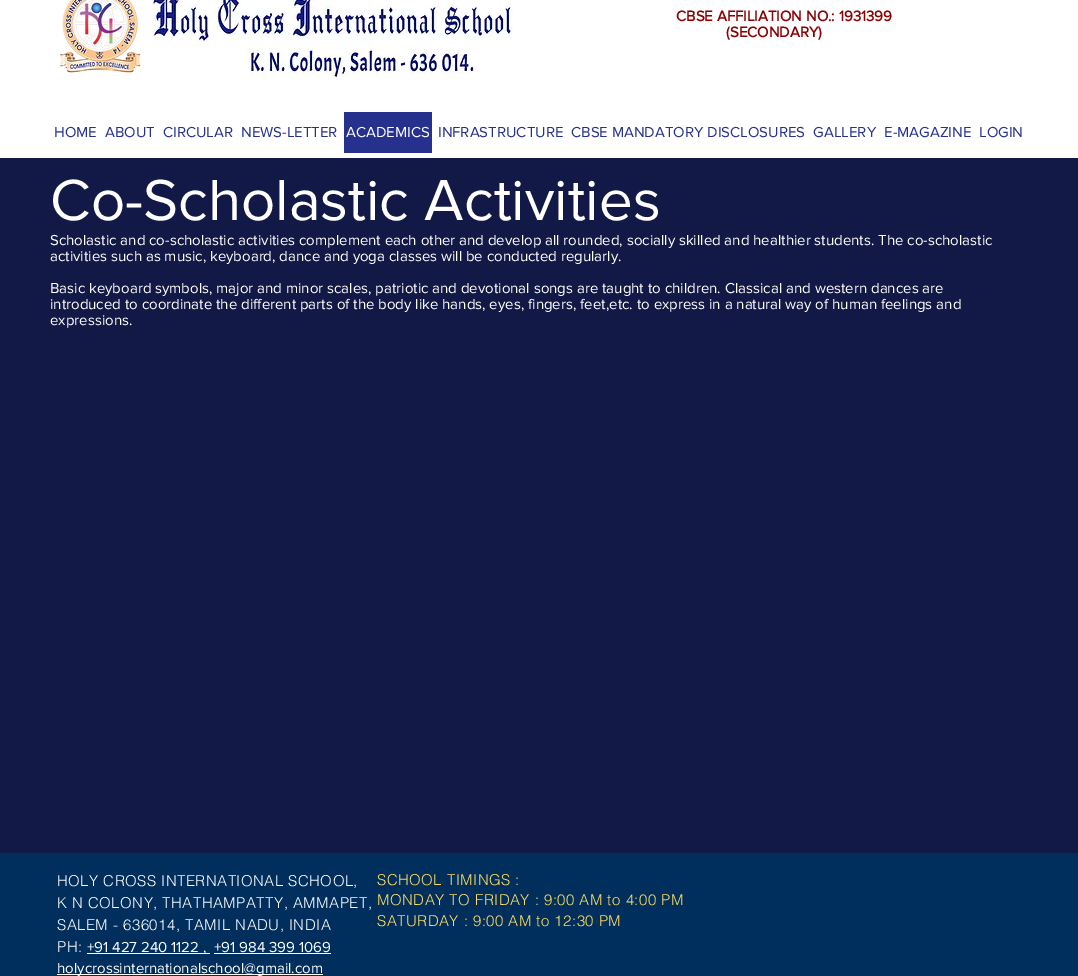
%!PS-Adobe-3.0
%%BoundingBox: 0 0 1078 976
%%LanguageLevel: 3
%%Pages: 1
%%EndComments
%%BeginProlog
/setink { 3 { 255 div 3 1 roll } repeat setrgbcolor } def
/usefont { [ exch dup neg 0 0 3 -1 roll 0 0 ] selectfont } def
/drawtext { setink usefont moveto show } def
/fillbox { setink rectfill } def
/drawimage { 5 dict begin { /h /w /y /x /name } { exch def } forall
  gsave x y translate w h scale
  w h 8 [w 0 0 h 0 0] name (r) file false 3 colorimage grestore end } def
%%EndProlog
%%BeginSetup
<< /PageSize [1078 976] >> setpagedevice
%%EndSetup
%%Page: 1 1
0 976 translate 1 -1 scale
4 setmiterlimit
0 0 1078 976 255 255 255 fillbox
(assets/img1.rgb) 60 0 81 73 drawimage
(assets/img2.rgb) 153 0 360 78 drawimage
(CBSE AFFILIATION NO.: 1931399) 676 21 /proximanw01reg-Bold 15 139 0 0 drawtext
(\(SECONDARY\)) 726 37 /proximanw01reg-Bold 15 139 0 0 drawtext
(HOME) 54 137 /proximanw01reg-Regular 15 37 49 141 drawtext
(ABOUT) 105 137 /proximanw01reg-Regular 15 37 49 141 drawtext
(CIRCULAR) 163 137 /proximanw01reg-Regular 15 37 49 141 drawtext
(NEWS-LETTER) 241 137 /proximanw01reg-Regular 15 37 49 141 drawtext
344 112 88 41 37 49 141 fillbox
(ACADEMICS) 346 137 /proximanw01reg-Regular 15 255 255 255 drawtext
(INFRASTRUCTURE) 438 137 /proximanw01reg-Regular 15 37 49 141 drawtext
(CBSE MANDATORY DISCLOSURES) 571 137 /proximanw01reg-Regular 15 37 49 141 drawtext
(GALLERY) 813 137 /proximanw01reg-Regular 15 37 49 141 drawtext
(E-MAGAZINE) 884 137 /proximanw01reg-Regular 15 37 49 141 drawtext
(LOGIN) 979 137 /proximanw01reg-Regular 15 37 49 141 drawtext
0 158 1078 695 19 25 70 fillbox
(Co-Scholastic Activities) 50 220 /proximanw01reg-Regular 60 255 255 255 drawtext
(Scholastic and co-scholastic activities complement each other and develop all rounded, socially skilled and healthier students. The co-scholastic) 50 245 /proximanw01reg-Regular 15 255 255 255 drawtext
(activities such as music, keyboard, dance and yoga classes will be conducted regularly.) 50 261 /proximanw01reg-Regular 15 255 255 255 drawtext
(Basic keyboard symbols, major and minor scales, patriotic and devotional songs are taught to children. Classical and western dances are) 50 293 /proximanw01reg-Regular 15 255 255 255 drawtext
(introduced to coordinate the different parts of the body like hands, eyes, fingers, feet,etc. to express in a natural way of human feelings and) 50 309 /proximanw01reg-Regular 15 255 255 255 drawtext
(expressions.) 50 325 /proximanw01reg-Regular 15 255 255 255 drawtext
0 853 1078 123 0 46 93 fillbox
/helvetica-Light 15 usefont
255 255 255 setink
57 886 moveto 0.45 0 (HOLY CROSS INTERNATIONAL SCHOOL,) ashow
57 908 moveto 0.45 0 (K N COLONY, THATHAMPATTY, AMMAPET,) ashow
57 930 moveto 0.45 0 (SALEM - 636014, TAMIL NADU, INDIA) ashow
57 952 moveto 0.45 0 (PH:) ashow
87 953 123 1 255 255 255 fillbox
(+91 427 240 1122 ,) 87 952 /proximanw01reg-Regular 15 255 255 255 drawtext
(+91 984 399 1069) 214 952 /proximanw01reg-Regular 15 255 255 255 drawtext
214 953 117 1 255 255 255 fillbox
57 974 266 1 255 255 255 fillbox
(holycrossinternationalschool@gmail.com) 57 973 /proximanw01reg-Regular 15 255 255 255 drawtext
/helvetica-Light 15 usefont
255 222 95 setink
377 885 moveto 0.45 0 (SCHOOL TIMINGS :) ashow
377 905 moveto 0.45 0 (MONDAY TO FRIDAY : 9:00 AM to 4:00 PM) ashow
377 926 moveto 0.45 0 (SATURDAY : 9:00 AM to 12:30 PM) ashow
showpage
%%EOF
